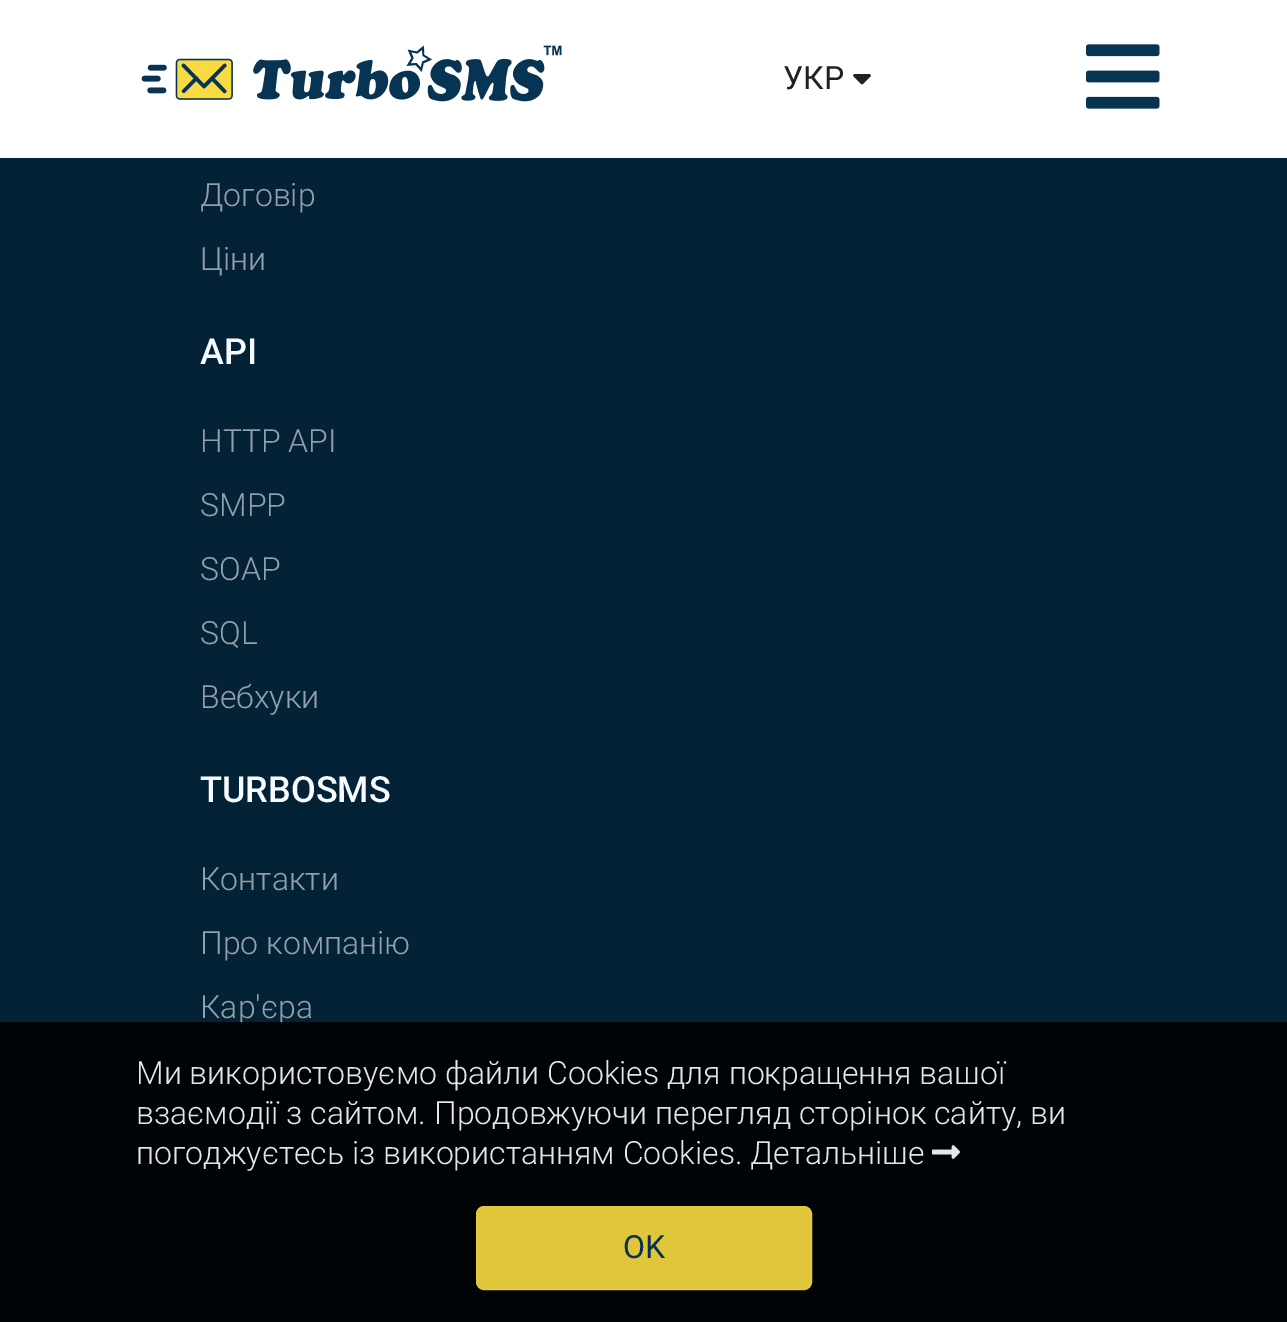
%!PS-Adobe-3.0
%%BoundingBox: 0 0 1287 1322
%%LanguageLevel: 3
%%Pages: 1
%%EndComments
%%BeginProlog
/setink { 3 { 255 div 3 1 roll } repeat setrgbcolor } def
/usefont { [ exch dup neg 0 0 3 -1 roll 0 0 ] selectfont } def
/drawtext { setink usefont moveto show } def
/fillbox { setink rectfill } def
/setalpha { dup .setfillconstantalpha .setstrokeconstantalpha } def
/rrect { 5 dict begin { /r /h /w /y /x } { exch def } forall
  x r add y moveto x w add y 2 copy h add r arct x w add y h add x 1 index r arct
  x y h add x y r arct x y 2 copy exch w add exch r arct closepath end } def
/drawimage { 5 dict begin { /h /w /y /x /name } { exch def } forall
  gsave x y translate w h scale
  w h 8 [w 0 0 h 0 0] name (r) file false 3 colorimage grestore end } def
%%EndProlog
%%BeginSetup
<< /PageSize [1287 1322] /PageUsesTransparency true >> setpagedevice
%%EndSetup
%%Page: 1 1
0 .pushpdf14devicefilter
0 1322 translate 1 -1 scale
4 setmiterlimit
0 0 1287 1322 4 34 54 fillbox
0 0 1287 158 255 255 255 fillbox
(assets/img1.rgb) 141 45 421 57 drawimage
(УКР) 783 89 /Roboto-Regular 32 33 33 33 drawtext
(assets/img2.rgb) 853 74 18 11 drawimage
(assets/img3.rgb) 1086 44 74 65 drawimage
(Договір) 200 206 /Roboto-Light 32 146 160 169 drawtext
(Ціни) 200 270 /Roboto-Light 32 146 160 169 drawtext
(API) 200 364 /Roboto-Medium 36 248 251 253 drawtext
(HTTP API) 200 452 /Roboto-Light 32 146 160 169 drawtext
(SMPP) 200 516 /Roboto-Light 32 146 160 169 drawtext
(SOAP) 200 580 /Roboto-Light 32 146 160 169 drawtext
(SQL) 200 644 /Roboto-Light 32 146 160 169 drawtext
(Вебхуки) 200 708 /Roboto-Light 32 146 160 169 drawtext
(TURBOSMS) 200 802 /Roboto-Medium 36 248 251 253 drawtext
(Контакти) 200 890 /Roboto-Light 32 146 160 169 drawtext
(Про компанію) 200 954 /Roboto-Light 32 146 160 169 drawtext
(Кар'єра) 200 1018 /Roboto-Light 32 146 160 169 drawtext
0.9 setalpha
0 1022 1287 300 0 0 0 fillbox
1 setalpha
(Ми використовуємо файли Cookies для покращення вашої) 136 1084 /Roboto-Light 32 230 230 230 drawtext
(взаємодії з сайтом. Продовжуючи перегляд сторінок сайту, ви) 136 1124 /Roboto-Light 32 230 230 230 drawtext
(погоджуєтесь із використанням Cookies.) 136 1164 /Roboto-Light 32 230 230 230 drawtext
(Детальніше) 750 1164 /Roboto-Light 32 230 230 230 drawtext
(assets/img4.rgb) 932 1145 28 14 drawimage
0.9 setalpha
249 219 65 setink
477 1207 334 82 7 rrect fill
1 setalpha
225 201 64 setink
2 setlinewidth
477 1207 334 82 7 rrect stroke
(OK) 623 1258 /Roboto-Regular 32 6 50 79 drawtext
.poppdf14devicefilter showpage
%%EOF
